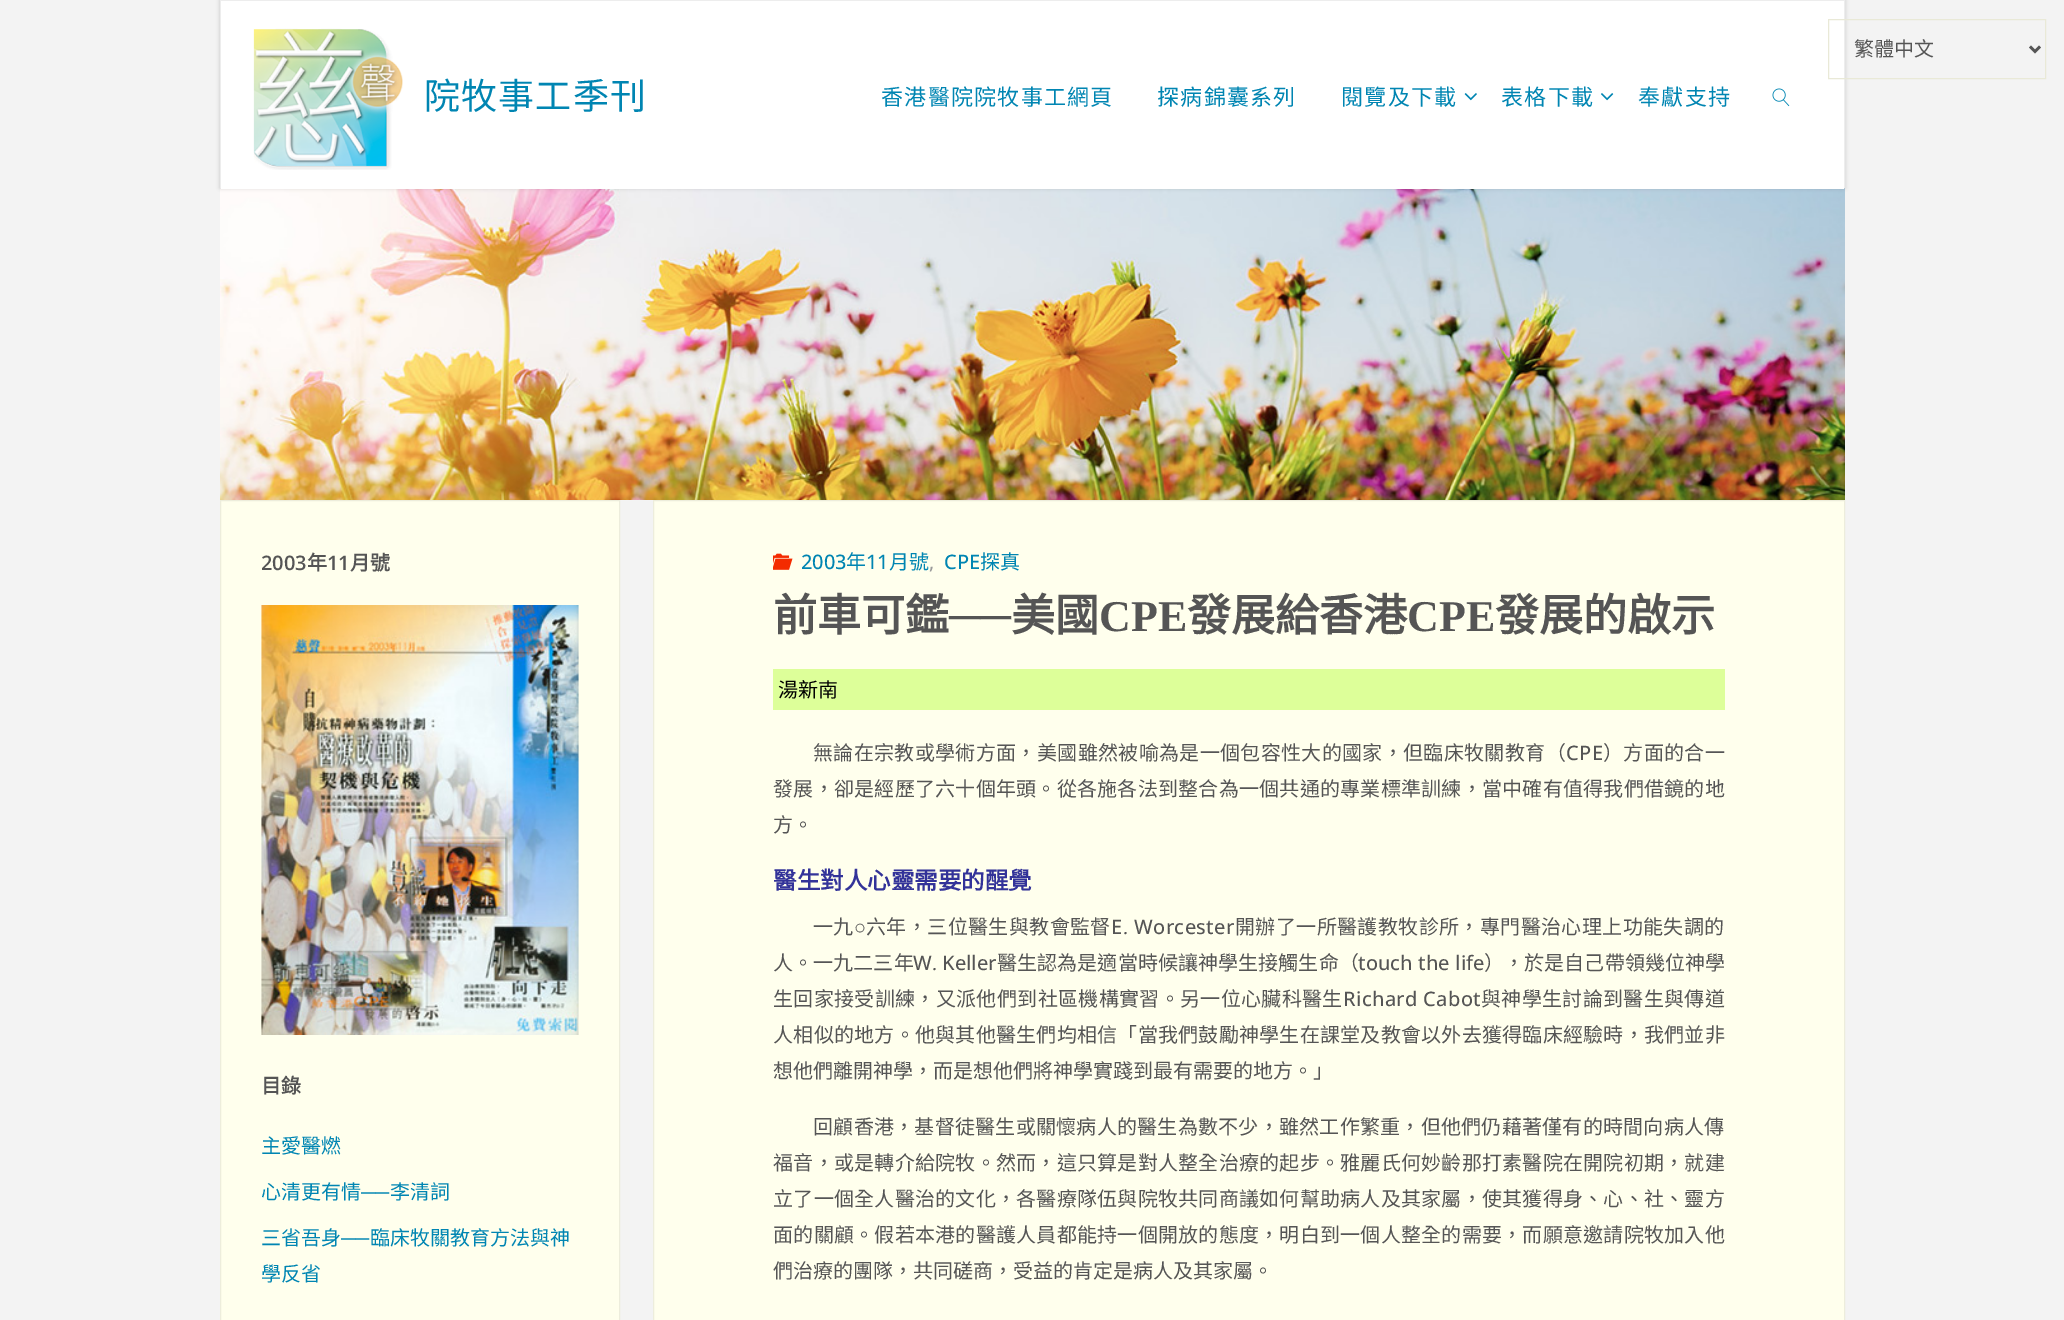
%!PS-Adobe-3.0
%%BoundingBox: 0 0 2064 1320
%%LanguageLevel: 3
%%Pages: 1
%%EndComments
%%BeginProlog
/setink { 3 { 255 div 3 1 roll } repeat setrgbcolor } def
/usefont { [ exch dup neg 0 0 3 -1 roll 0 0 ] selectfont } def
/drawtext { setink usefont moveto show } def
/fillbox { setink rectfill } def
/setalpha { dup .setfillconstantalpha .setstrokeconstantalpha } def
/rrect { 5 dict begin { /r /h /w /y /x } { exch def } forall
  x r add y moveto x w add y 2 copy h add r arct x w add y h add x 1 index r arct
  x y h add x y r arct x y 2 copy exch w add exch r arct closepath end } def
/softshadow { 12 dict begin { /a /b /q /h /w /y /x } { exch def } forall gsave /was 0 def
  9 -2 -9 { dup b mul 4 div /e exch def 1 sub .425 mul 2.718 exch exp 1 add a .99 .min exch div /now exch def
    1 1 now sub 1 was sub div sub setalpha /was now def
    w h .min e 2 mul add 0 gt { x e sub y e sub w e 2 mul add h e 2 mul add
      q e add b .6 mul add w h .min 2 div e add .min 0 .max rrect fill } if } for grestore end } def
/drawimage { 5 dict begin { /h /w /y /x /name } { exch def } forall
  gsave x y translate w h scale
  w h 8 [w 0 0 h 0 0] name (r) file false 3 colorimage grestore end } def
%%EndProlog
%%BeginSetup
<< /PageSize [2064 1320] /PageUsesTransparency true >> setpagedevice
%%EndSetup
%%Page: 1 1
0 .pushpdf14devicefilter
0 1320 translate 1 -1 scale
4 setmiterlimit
0 0 2064 1320 243 243 243 fillbox
(assets/img5.rgb) 220 188 1625 312 drawimage
0 0 0 setink
220 0 1625 188 0 2 0.2 softshadow
237 237 237 setink
220.5 0.5 1624 187 rectstroke
221 1 1623 188 255 255 255 fillbox
233 233 215 setink
1828.5 19.5 217 59 rectstroke
85 85 85 setink
2.5 setlinewidth
2030 46.5 moveto 2035 51.5 lineto 2040 46.5 lineto stroke
(繁體中文) 1854 56 /NotoSansCJKHK-Regular 20 85 85 85 drawtext
(assets/img1.rgb) 253 28 150 142 drawimage
(院) 424 109 /NotoSansCJKHK-Regular 36 0 133 178 drawtext
(牧) 461 109 /NotoSansCJKHK-Regular 36 0 133 178 drawtext
(事) 498 109 /NotoSansCJKHK-Regular 36 0 133 178 drawtext
(工) 535 109 /NotoSansCJKHK-Regular 36 0 133 178 drawtext
(季) 573 109 /NotoSansCJKHK-Regular 36 0 133 178 drawtext
(刊) 610 109 /NotoSansCJKHK-Regular 36 0 133 178 drawtext
/NotoSansCJKHK-Regular 22 usefont
881 105 moveto 1.25 0 (香港醫院院牧事工網頁) ashow
1157 105 moveto 1.25 0 (探病錦囊系列) ashow
1341 105 moveto 1.25 0 (閱覽及下載) ashow
(assets/img2.rgb) 1464 93 13 8 drawimage
1501 105 moveto 1.25 0 (表格下載) ashow
(assets/img3.rgb) 1601 93 13 8 drawimage
1638 105 moveto 1.25 0 (奉獻支持) ashow
(assets/img4.rgb) 1772 88 18 19 drawimage
255 255 237 setink
220.5 500.5 moveto 619.5 500.5 lineto 619.5 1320.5 lineto 220.5 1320.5 lineto closepath gsave fill grestore
237 237 220 setink
1 setlinewidth
stroke
(2003) 261 570 /OpenSans-SemiBold 20 85 85 85 drawtext
(年) 307 570 /NotoSansCJKHK-Bold 20 85 85 85 drawtext
(11) 327 570 /OpenSans-SemiBold 20 85 85 85 drawtext
(月號) 350 570 /NotoSansCJKHK-Bold 20 85 85 85 drawtext
(assets/img6.rgb) 261 605 318 430 drawimage
(目錄) 261 1093 /NotoSansCJKHK-Bold 20 85 85 85 drawtext
(主愛醫燃) 261 1153 /NotoSansCJKHK-Regular 20 0 133 178 drawtext
(心清更有情) 261 1199 /NotoSansCJKHK-Regular 20 0 133 178 drawtext
(──) 361 1199 /LiberationSerif-Regular 20 0 133 178 drawtext
(李清詞) 390 1199 /NotoSansCJKHK-Regular 20 0 133 178 drawtext
(三省吾身) 261 1245 /NotoSansCJKHK-Regular 20 0 133 178 drawtext
(──) 341 1245 /LiberationSerif-Regular 20 0 133 178 drawtext
(臨床牧關教育方法與神) 370 1245 /NotoSansCJKHK-Regular 20 0 133 178 drawtext
(學反省) 261 1281 /NotoSansCJKHK-Regular 20 0 133 178 drawtext
255 255 237 setink
653.5 500.5 moveto 1844.5 500.5 lineto 1844.5 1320.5 lineto 653.5 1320.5 lineto closepath gsave fill grestore
237 237 220 setink
stroke
(assets/img7.rgb) 773 553 20 17 drawimage
(2003) 801 569 /OpenSans-Medium 20 0 133 178 drawtext
(年) 846 569 /NotoSansCJKHK-Regular 20 0 133 178 drawtext
(11) 866 569 /OpenSans-Medium 20 0 133 178 drawtext
(月號) 889 569 /NotoSansCJKHK-Regular 20 0 133 178 drawtext
(,) 929 569 /OpenSans-Medium 20 154 154 154 drawtext
(CPE) 944 569 /OpenSans-Medium 20 0 133 178 drawtext
(探真) 980 569 /NotoSansCJKHK-Regular 20 0 133 178 drawtext
(前車可鑑) 773 631 /NotoSansCJKHK-Bold 44 85 85 85 drawtext
(──) 949 631 /LiberationSerif-Bold 44 85 85 85 drawtext
(美國) 1011 631 /NotoSansCJKHK-Bold 44 85 85 85 drawtext
(CPE) 1099 631 /LiberationSerif-Bold 44 85 85 85 drawtext
(發展給香港) 1187 631 /NotoSansCJKHK-Bold 44 85 85 85 drawtext
(CPE) 1407 631 /LiberationSerif-Bold 44 85 85 85 drawtext
(發展的啟示) 1495 631 /NotoSansCJKHK-Bold 44 85 85 85 drawtext
773 669 952 41 221 255 153 fillbox
(湯新南) 778 697 /NotoSansCJKHK-Regular 20 0 0 0 drawtext
85 85 85 setink
813 760 moveto 0.35 0 (無論在宗教或學術方面，美國雖然被喻為是一個包容性大的國家，但臨床牧關教育（) ashow
/OpenSans-Medium 20 usefont
1566 760 moveto 0.35 0 (CPE) ashow
/NotoSansCJKHK-Regular 20 usefont
1603 760 moveto 0.35 0 (）方面的合一) ashow
773 796 moveto 0.25 0 (發展，卻是經歷了六十個年頭。從各施各法到整合為一個共通的專業標準訓練，當中確有值得我們借鏡的地) ashow
(方。) 773 832 /NotoSansCJKHK-Regular 20 85 85 85 drawtext
(醫生對人心靈需要的醒覺) 773 889 /NotoSansCJKHK-Bold 23.5 51 51 153 drawtext
/NotoSansCJKHK-Regular 20 usefont
85 85 85 setink
813 934 moveto 0.4 0 (一九) ashow
/LiberationSerif-Regular 20 usefont
854 934 moveto 0.4 0 (○) ashow
/NotoSansCJKHK-Regular 20 usefont
866 934 moveto 0.4 0 (六年，三位醫生與教會監督) ashow
/OpenSans-Medium 20 usefont
1111 934 moveto 0.4 0 (E) ashow
/LiberationSerif-Regular 20 usefont
1123 934 moveto 0.4 0 (.) ashow
/OpenSans-Medium 20 usefont
1134 934 moveto 0.4 0 (Worcester) ashow
/NotoSansCJKHK-Regular 20 usefont
1235 934 moveto 0.4 0 (開辦了一所醫護教牧診所，專門醫治心理上功能失調的) ashow
773 970 moveto 0.1 0 (人。一九二三年) ashow
/OpenSans-Medium 20 usefont
913 970 moveto 0.1 0 (W) ashow
/LiberationSerif-Regular 20 usefont
932 970 moveto 0.1 0 (.) ashow
/OpenSans-Medium 20 usefont
942 970 moveto 0.1 0 (Keller) ashow
/NotoSansCJKHK-Regular 20 usefont
997 970 moveto 0.1 0 (醫生認為是適當時候讓神學生接觸生命（) ashow
/OpenSans-Medium 20 usefont
1358 970 moveto 0.1 0 (touch the life) ashow
/NotoSansCJKHK-Regular 20 usefont
1484 970 moveto 0.1 0 (），於是自己帶領幾位神學) ashow
773 1006 moveto 0.35 0 (生回家接受訓練，又派他們到社區機構實習。另一位心臟科醫生) ashow
/OpenSans-Medium 20 usefont
1343 1006 moveto 0.35 0 (Richard Cabot) ashow
/NotoSansCJKHK-Regular 20 usefont
1481 1006 moveto 0.35 0 (與神學生討論到醫生與傳道) ashow
773 1042 moveto 0.25 0 (人相似的地方。他與其他醫生們均相信「當我們鼓勵神學生在課堂及教會以外去獲得臨床經驗時，我們並非) ashow
(想他們離開神學，而是想他們將神學實踐到最有需要的地方。」) 773 1078 /NotoSansCJKHK-Regular 20 85 85 85 drawtext
813 1134 moveto 0.25 0 (回顧香港，基督徒醫生或關懷病人的醫生為數不少，雖然工作繁重，但他們仍藉著僅有的時間向病人傳) ashow
773 1170 moveto 0.25 0 (福音，或是轉介給院牧。然而，這只算是對人整全治療的起步。雅麗氏何妙齡那打素醫院在開院初期，就建) ashow
773 1206 moveto 0.25 0 (立了一個全人醫治的文化，各醫療隊伍與院牧共同商議如何幫助病人及其家屬，使其獲得身、心、社、靈方) ashow
773 1242 moveto 0.25 0 (面的關顧。假若本港的醫護人員都能持一個開放的態度，明白到一個人整全的需要，而願意邀請院牧加入他) ashow
(們治療的團隊，共同磋商，受益的肯定是病人及其家屬。) 773 1278 /NotoSansCJKHK-Regular 20 85 85 85 drawtext
.poppdf14devicefilter showpage
%%EOF
